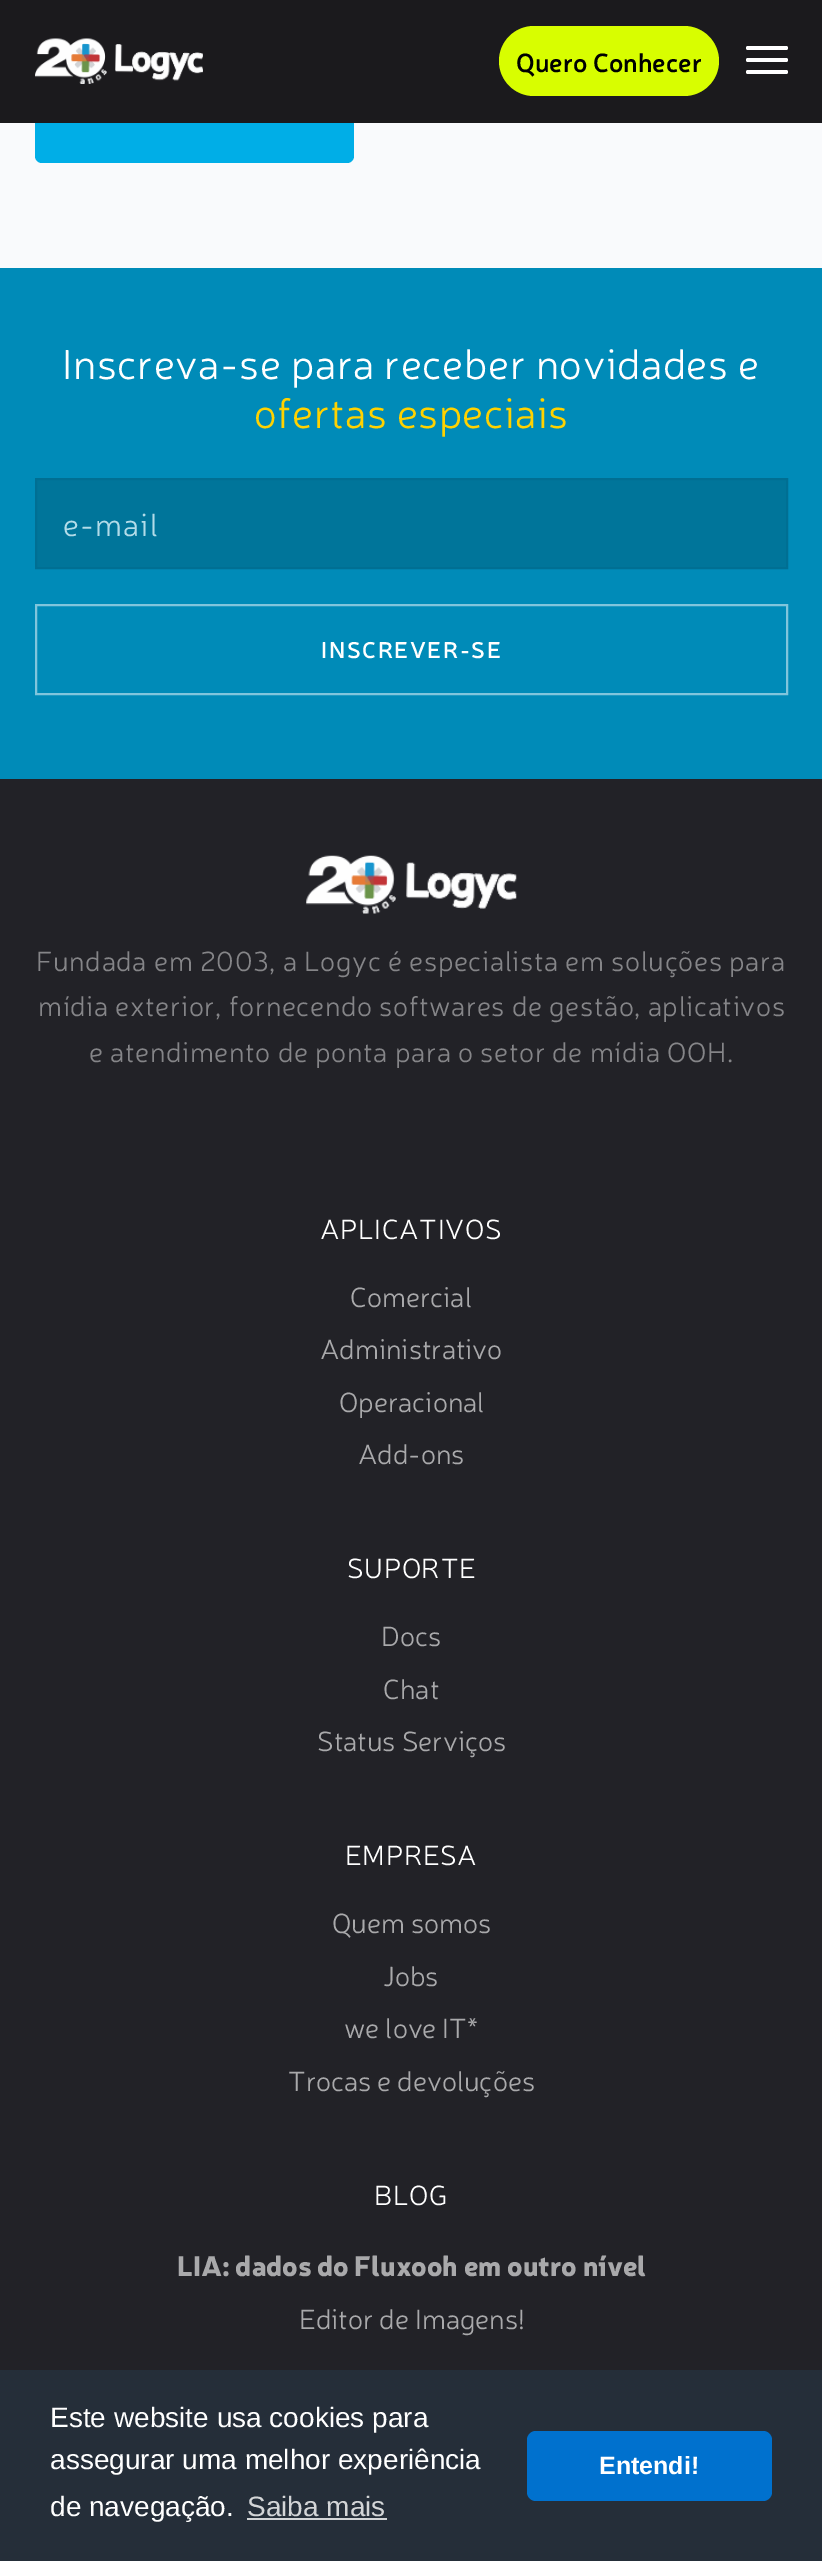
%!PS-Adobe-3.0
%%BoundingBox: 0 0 822 2561
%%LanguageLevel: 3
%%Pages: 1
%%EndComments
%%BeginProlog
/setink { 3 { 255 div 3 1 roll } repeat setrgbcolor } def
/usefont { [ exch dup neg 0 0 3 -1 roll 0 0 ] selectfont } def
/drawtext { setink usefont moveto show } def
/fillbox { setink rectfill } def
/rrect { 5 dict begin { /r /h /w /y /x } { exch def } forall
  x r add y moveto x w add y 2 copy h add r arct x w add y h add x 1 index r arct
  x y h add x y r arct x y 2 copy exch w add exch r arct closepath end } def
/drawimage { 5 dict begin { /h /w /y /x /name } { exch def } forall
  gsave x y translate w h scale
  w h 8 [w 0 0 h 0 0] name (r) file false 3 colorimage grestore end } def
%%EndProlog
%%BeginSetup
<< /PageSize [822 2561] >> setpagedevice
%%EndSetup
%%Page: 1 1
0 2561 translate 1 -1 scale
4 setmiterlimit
0 0 822 2561 249 250 252 fillbox
0 174 231 setink
35 75 319 88 7 rrect fill
0 0 822 123 27 26 29 fillbox
(assets/img1.rgb) 35 38 168 46 drawimage
216 254 0 setink
499 26 220 70 35 rrect fill
(Quero Conhecer) 516 72 /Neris-SemiBold 26.25 0 0 0 drawtext
255 255 255 setink
746 46 42 4 2 rrect fill
746 58 42 4 2 rrect fill
746 70 42 4 2 rrect fill
0 268 822 511 0 139 184 fillbox
/Neris-Light 42 usefont
255 255 255 setink
62 379 moveto 0.63 0 (Inscreva-se para receber novidades e) ashow
255 210 0 setink
254 428 moveto 0.63 0 (ofertas especiais) ashow
0 117 154 setink
36 479 moveto 787 479 lineto 787 568 lineto 36 568 lineto closepath gsave fill grestore
0 111 147 setink
2 setlinewidth
stroke
/Neris-Light 31.5 usefont
178 220 233 setink
63 536 moveto 1.25 0 (e-mail) ashow
128 197 220 setink
36 605 751 89 rectstroke
/Neris-SemiBold 22.75 usefont
255 255 255 setink
321 658 moveto 1.6 0 (INSCREVER-SE) ashow
0 779 822 1591 34 34 39 fillbox
(assets/img2.rgb) 306 855 211 59 drawimage
/Neris-Light 28 usefont
133 133 136 setink
36 971 moveto 0.63 0 (Fundada em 2003, a Logyc é especialista em soluções para) ashow
38 1016 moveto 0.63 0 (mídia exterior, fornecendo softwares de gestão, aplicativos) ashow
89 1062 moveto 0.63 0 (e atendimento de ponta para o setor de mídia OOH.) ashow
255 255 255 setink
320 1239 moveto 0.63 0 (APLICATIVOS) ashow
(Comercial) 350 1307 /Neris-Light 28 169 169 171 drawtext
(Administrativo) 320 1359 /Neris-Light 28 169 169 171 drawtext
(Operacional) 339 1412 /Neris-Light 28 169 169 171 drawtext
(Add-ons) 358 1464 /Neris-Light 28 169 169 171 drawtext
255 255 255 setink
347 1578 moveto 0.63 0 (SUPORTE) ashow
(Docs) 381 1646 /Neris-Light 28 169 169 171 drawtext
(Chat) 383 1699 /Neris-Light 28 169 169 171 drawtext
(Status Serviços) 317 1751 /Neris-Light 28 169 169 171 drawtext
255 255 255 setink
345 1865 moveto 0.63 0 (EMPRESA) ashow
(Quem somos) 332 1933 /Neris-Light 28 169 169 171 drawtext
(Jobs) 383 1986 /Neris-Light 28 169 169 171 drawtext
(we love IT*) 344 2038 /Neris-Light 28 169 169 171 drawtext
(Trocas e devoluções) 288 2091 /Neris-Light 28 169 169 171 drawtext
255 255 255 setink
374 2205 moveto 0.63 0 (BLOG) ashow
(LIA: dados do Fluxooh em outro nível) 177 2276 /Neris-Black 28 169 169 171 drawtext
(Editor de Imagens!) 299 2329 /Neris-Light 28 169 169 171 drawtext
0 2370 822 191 37 46 57 fillbox
(Este website usa cookies para) 50 2427 /LiberationSans-Regular 28 255 255 255 drawtext
(assegurar uma melhor experiência) 50 2469 /LiberationSans-Regular 28 255 255 255 drawtext
(de navegação.) 50 2516 /LiberationSans-Regular 28 255 255 255 drawtext
(Saiba mais) 247 2516 /LiberationSans-Regular 28 211 213 215 drawtext
247 2518 140 2 211 213 215 fillbox
0 113 206 setink
527 2431 245 70 9 rrect fill
(Entendi!) 599 2474 /LiberationSans-Bold 25 255 255 255 drawtext
showpage
%%EOF
